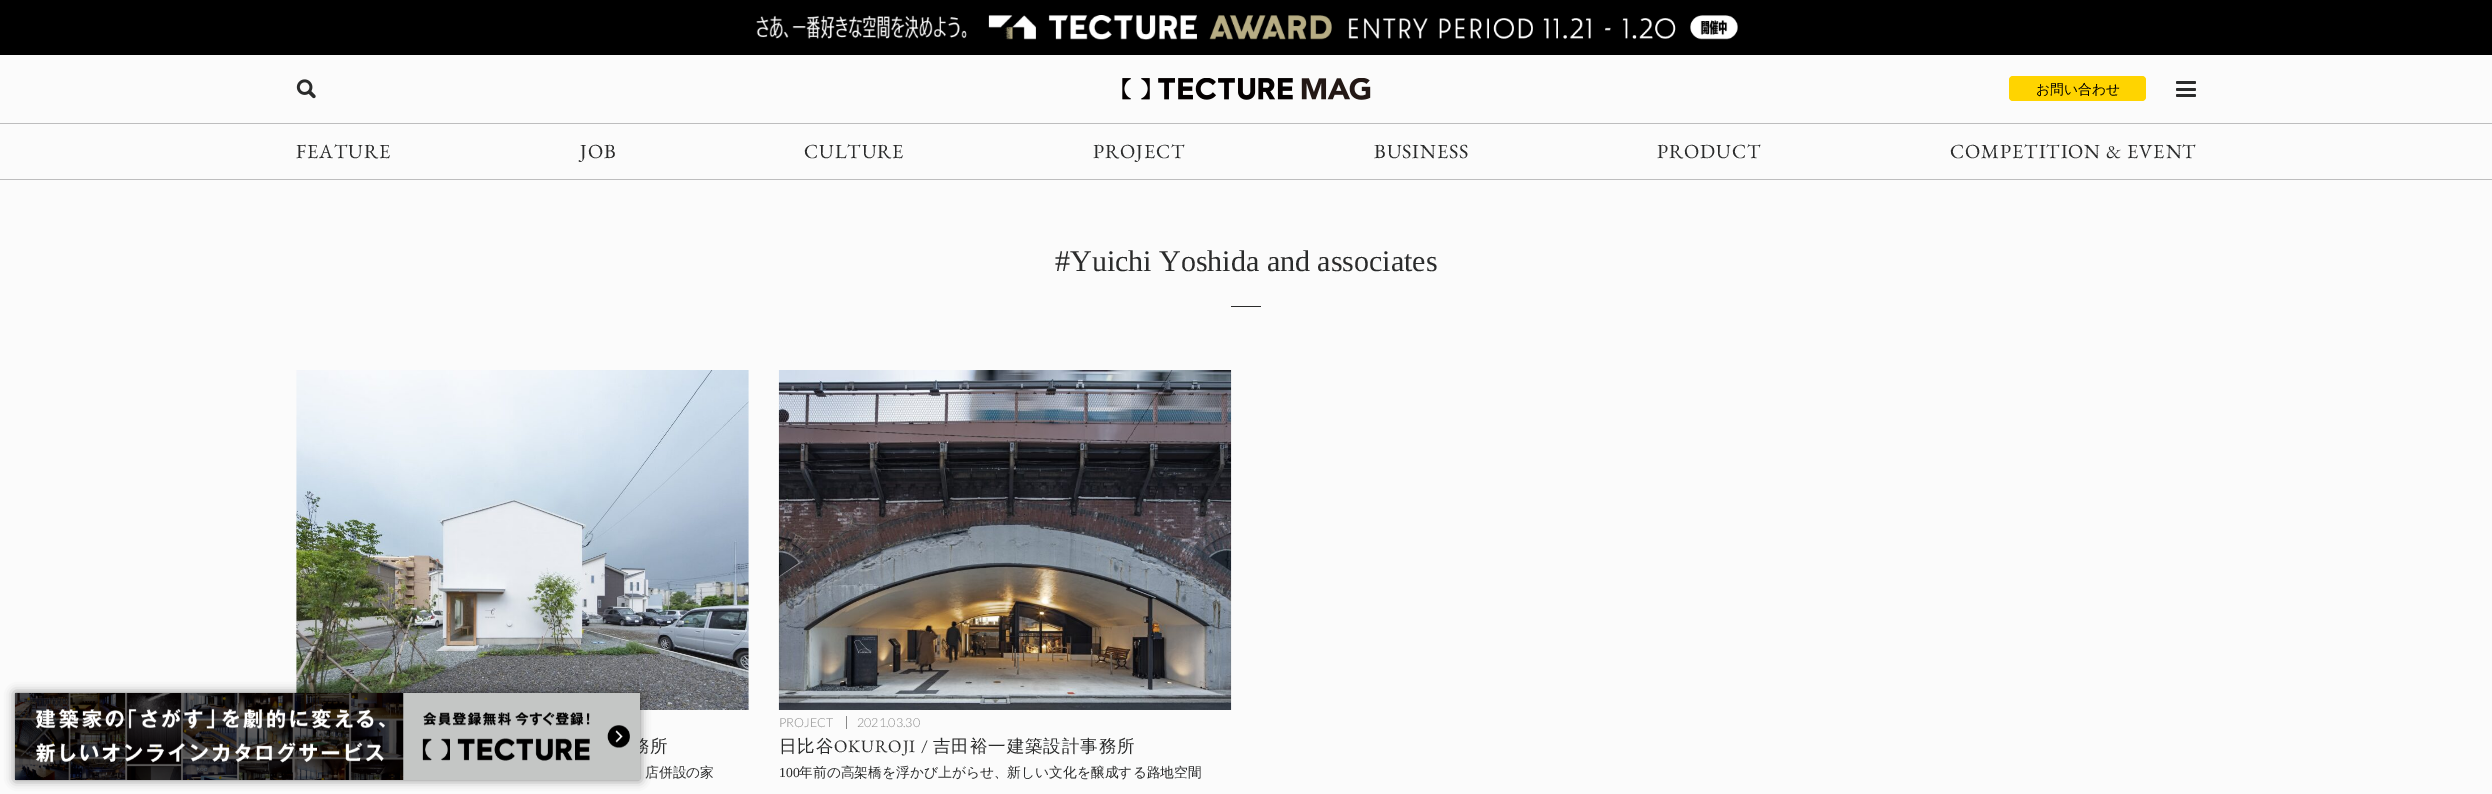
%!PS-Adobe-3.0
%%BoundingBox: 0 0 2492 794
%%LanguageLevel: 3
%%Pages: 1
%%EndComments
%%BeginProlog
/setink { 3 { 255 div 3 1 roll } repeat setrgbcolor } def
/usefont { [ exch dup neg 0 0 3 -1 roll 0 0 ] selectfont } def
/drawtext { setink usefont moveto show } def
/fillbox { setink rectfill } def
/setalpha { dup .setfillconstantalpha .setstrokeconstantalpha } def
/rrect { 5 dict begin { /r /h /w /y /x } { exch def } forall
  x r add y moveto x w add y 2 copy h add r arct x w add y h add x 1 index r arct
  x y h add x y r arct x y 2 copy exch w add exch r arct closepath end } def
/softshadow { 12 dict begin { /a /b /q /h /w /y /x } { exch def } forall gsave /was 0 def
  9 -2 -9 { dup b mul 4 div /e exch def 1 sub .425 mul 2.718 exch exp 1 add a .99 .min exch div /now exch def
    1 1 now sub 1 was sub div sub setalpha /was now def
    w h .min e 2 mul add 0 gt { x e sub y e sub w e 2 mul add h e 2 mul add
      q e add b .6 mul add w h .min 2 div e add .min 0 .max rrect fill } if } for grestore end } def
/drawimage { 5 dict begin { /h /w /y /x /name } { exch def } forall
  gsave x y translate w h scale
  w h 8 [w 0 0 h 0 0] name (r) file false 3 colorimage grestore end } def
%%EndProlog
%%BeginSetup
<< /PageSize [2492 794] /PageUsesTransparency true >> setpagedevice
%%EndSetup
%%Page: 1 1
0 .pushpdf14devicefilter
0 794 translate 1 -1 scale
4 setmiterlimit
0 0 2492 794 251 251 251 fillbox
0 0 2492 55 0 0 0 fillbox
(assets/img1.rgb) 756 15 982 25 drawimage
0 123 2492 1 189 189 190 fillbox
(assets/img2.rgb) 296 79 20 20 drawimage
(assets/img3.rgb) 1122 78 249 22 drawimage
255 212 0 setink
2009 76 137 25 4 rrect fill
(お問い合わせ) 2036 94 /WenQuanYiZenHei-Medium 13.75 0 0 0 drawtext
42 43 43 setink
2176 81 20 3 1.5 rrect fill
2176 88 20 3 1.5 rrect fill
2176 94 20 3 1.5 rrect fill
0 179 2492 1 189 189 190 fillbox
/EBGaramond-Regular 20 usefont
42 43 43 setink
296 158 moveto 0.9 0 (FEATURE) ashow
580 158 moveto 0.9 0 (JOB) ashow
804 158 moveto 0.9 0 (CULTURE) ashow
1093 158 moveto 0.9 0 (PROJECT) ashow
1374 158 moveto 0.9 0 (BUSINESS) ashow
1657 158 moveto 0.9 0 (PRODUCT) ashow
1950 158 moveto 0.9 0 (COMPETITION & EVENT) ashow
(assets/img5.rgb) 296 370 453 340 drawimage
0 0 0 setink
15 693 625 87 0 5 0.5 softshadow
/WenQuanYiZenHei-Medium 17.5 usefont
42 43 43 setink
632 752 moveto 0.9 0 (務所) ashow
(assets/img4.rgb) 15 693 625 87 drawimage
(#Yuichi Yoshida and associates) 1055 271 /LiberationSerif-Regular 30 42 43 43 drawtext
1231 306 30 1 42 43 43 fillbox
(店併設の家) 645 777 /WenQuanYiZenHei-Medium 13.75 42 43 43 drawtext
(assets/img6.rgb) 778 370 454 340 drawimage
(PROJECT) 779 727 /Lato-Light 12.5 137 137 137 drawtext
846 716 1 13 137 137 137 fillbox
(2021.03.30) 857 727 /Lato-Light 12.5 137 137 137 drawtext
/WenQuanYiZenHei-Medium 17.5 usefont
42 43 43 setink
779 752 moveto 0.9 0 (日比谷) ashow
/EBGaramond-Regular 17.5 usefont
834 752 moveto 0.9 0 (OKUROJI /) ashow
/WenQuanYiZenHei-Medium 17.5 usefont
933 752 moveto 0.9 0 (吉田裕一建築設計事務所) ashow
(100) 779 777 /LiberationSerif-Regular 13.75 42 43 43 drawtext
(年前の高架橋を浮かび上がらせ、新しい文化を醸成する路地空間) 799 777 /WenQuanYiZenHei-Medium 13.75 42 43 43 drawtext
.poppdf14devicefilter showpage
%%EOF
